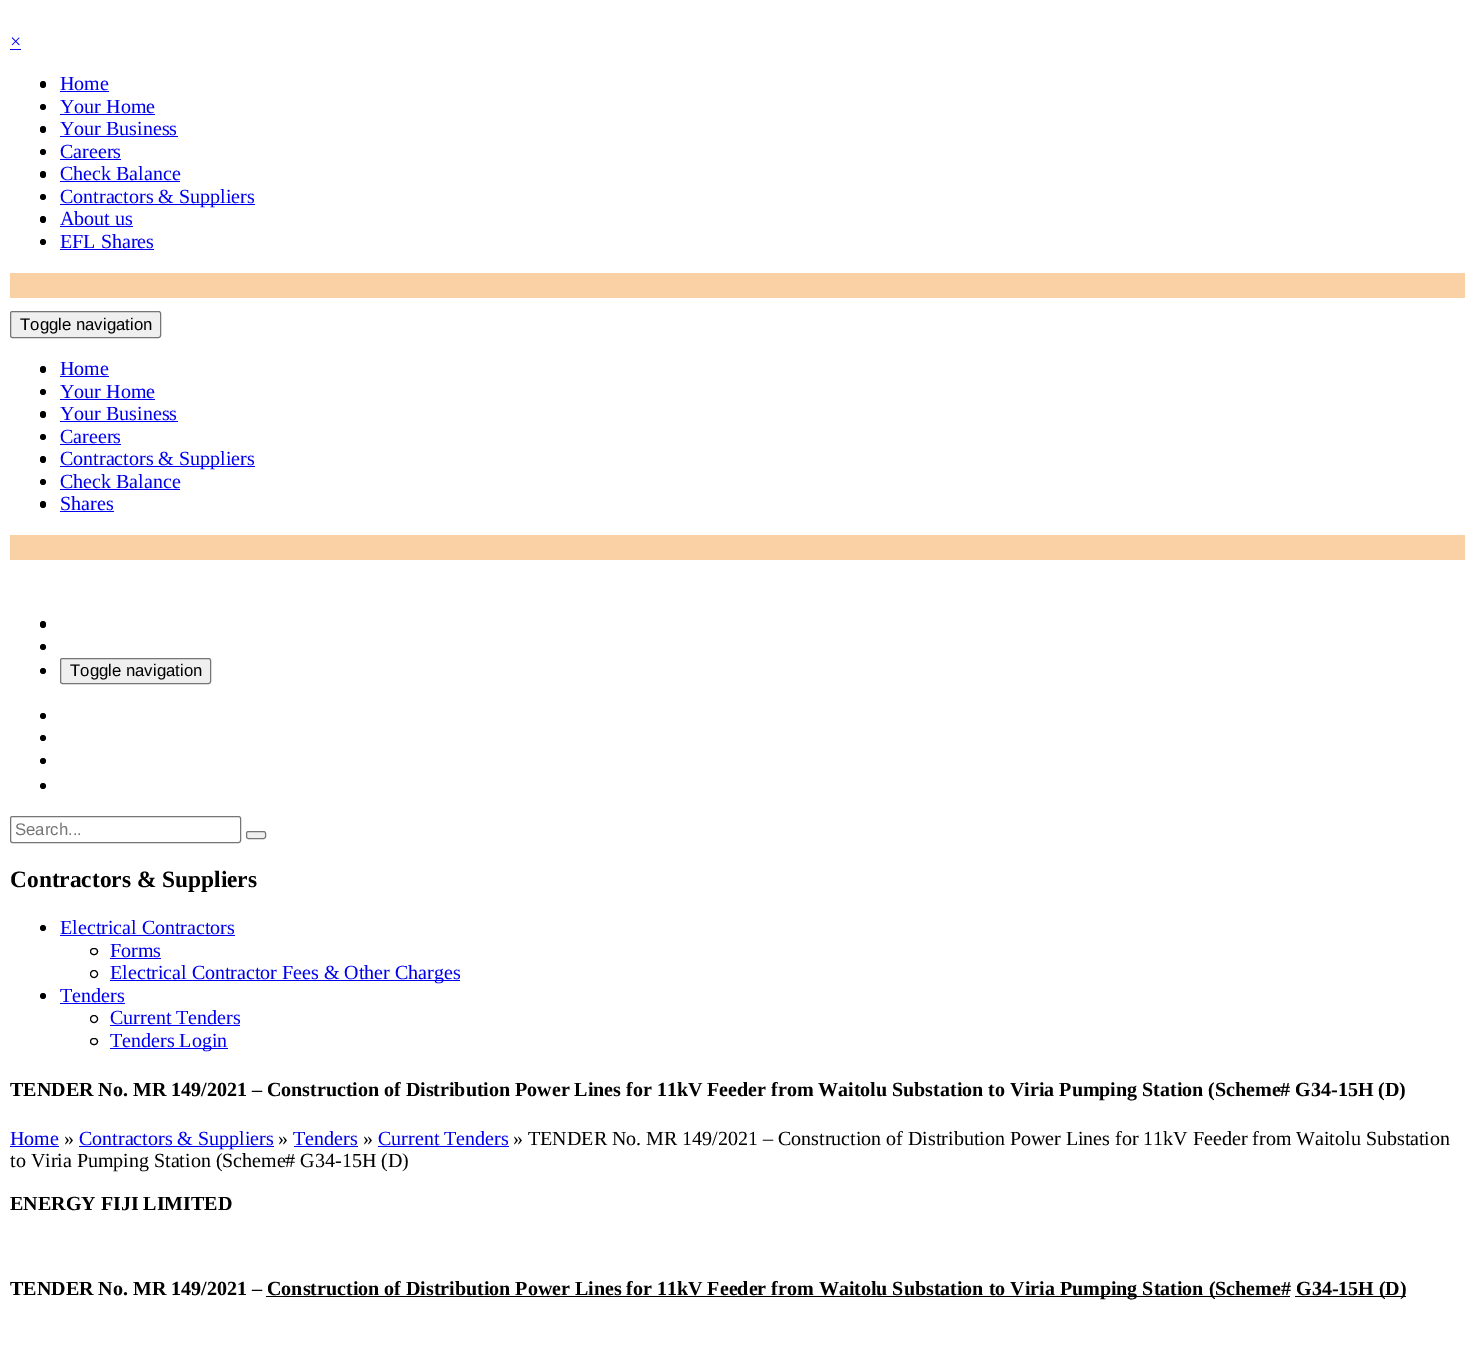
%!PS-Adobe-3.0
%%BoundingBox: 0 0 1475 1370
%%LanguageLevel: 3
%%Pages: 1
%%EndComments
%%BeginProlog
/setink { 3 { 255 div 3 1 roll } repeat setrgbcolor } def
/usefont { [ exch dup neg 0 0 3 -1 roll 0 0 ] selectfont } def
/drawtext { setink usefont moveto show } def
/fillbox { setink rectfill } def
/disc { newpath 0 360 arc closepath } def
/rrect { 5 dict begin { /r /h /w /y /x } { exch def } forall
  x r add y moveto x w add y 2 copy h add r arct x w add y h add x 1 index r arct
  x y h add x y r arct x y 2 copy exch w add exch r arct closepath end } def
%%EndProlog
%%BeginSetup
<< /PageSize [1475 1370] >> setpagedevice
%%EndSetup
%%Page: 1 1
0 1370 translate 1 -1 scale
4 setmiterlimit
0 0 1475 1370 255 255 255 fillbox
(×) 10 48 /LiberationSerif-Regular 20 0 0 238 drawtext
10 49 11 1 0 0 238 fillbox
0 0 0 setink
40 81 6 7 3 rrect fill
(Home) 60 90 /LiberationSerif-Regular 20 0 0 238 drawtext
60 91 49 1 0 0 238 fillbox
0 0 0 setink
43 107 3 disc fill
(Your Home) 60 113 /LiberationSerif-Regular 20 0 0 238 drawtext
60 114 95 1 0 0 238 fillbox
0 0 0 setink
40 126 6 7 3 rrect fill
(Your Business) 60 135 /LiberationSerif-Regular 20 0 0 238 drawtext
60 136 118 1 0 0 238 fillbox
0 0 0 setink
43 152 3 disc fill
(Careers) 60 158 /LiberationSerif-Regular 20 0 0 238 drawtext
60 159 61 1 0 0 238 fillbox
0 0 0 setink
40 171 6 7 3 rrect fill
(Check Balance) 60 180 /LiberationSerif-Regular 20 0 0 238 drawtext
60 181 120 1 0 0 238 fillbox
0 0 0 setink
43 197 3 disc fill
60 204 195 1 0 0 238 fillbox
(Contractors & Suppliers) 60 203 /LiberationSerif-Regular 20 0 0 238 drawtext
0 0 0 setink
40 216 6 7 3 rrect fill
(About us) 60 225 /LiberationSerif-Regular 20 0 0 238 drawtext
60 226 73 1 0 0 238 fillbox
0 0 0 setink
43 242 3 disc fill
(EFL Shares) 60 248 /LiberationSerif-Regular 20 0 0 238 drawtext
60 249 94 1 0 0 238 fillbox
10 273 1455 25 249 209 165 fillbox
239 239 239 setink
10.5 311.5 150 26 2 rrect gsave fill grestore
118 118 118 setink
stroke
(Toggle navigation) 20 330 /LiberationSans-Regular 16.75 0 0 0 drawtext
40 366 6 7 3 rrect fill
(Home) 60 375 /LiberationSerif-Regular 20 0 0 238 drawtext
60 376 49 1 0 0 238 fillbox
0 0 0 setink
43 392 3 disc fill
(Your Home) 60 398 /LiberationSerif-Regular 20 0 0 238 drawtext
60 399 95 1 0 0 238 fillbox
0 0 0 setink
40 411 6 7 3 rrect fill
(Your Business) 60 420 /LiberationSerif-Regular 20 0 0 238 drawtext
60 421 118 1 0 0 238 fillbox
0 0 0 setink
43 437 3 disc fill
(Careers) 60 443 /LiberationSerif-Regular 20 0 0 238 drawtext
60 444 61 1 0 0 238 fillbox
0 0 0 setink
40 456 6 7 3 rrect fill
60 466 195 1 0 0 238 fillbox
(Contractors & Suppliers) 60 465 /LiberationSerif-Regular 20 0 0 238 drawtext
0 0 0 setink
43 482 3 disc fill
(Check Balance) 60 488 /LiberationSerif-Regular 20 0 0 238 drawtext
60 489 120 1 0 0 238 fillbox
0 0 0 setink
40 501 6 7 3 rrect fill
(Shares) 60 510 /LiberationSerif-Regular 20 0 0 238 drawtext
60 511 54 1 0 0 238 fillbox
10 535 1455 25 249 209 165 fillbox
0 0 0 setink
40 621 6 7 3 rrect fill
43 647 3 disc fill
43 671 3 disc fill
239 239 239 setink
60.5 658.5 150 25 2 rrect gsave fill grestore
118 118 118 setink
stroke
(Toggle navigation) 70 676 /LiberationSans-Regular 16.75 0 0 0 drawtext
43 716 3 disc fill
43 738 3 disc fill
43 761 3 disc fill
43 786 3 disc fill
118 118 118 setink
10.5 816.5 230 26 2 rrect stroke
(Search...) 15 835 /LiberationSans-Regular 16.75 117 117 117 drawtext
239 239 239 setink
246.5 831.5 19 7 2 rrect gsave fill grestore
118 118 118 setink
stroke
(Contractors & Suppliers) 10 887 /LiberationSerif-Bold 23.4 0 0 0 drawtext
43 928 3 disc fill
(Electrical Contractors) 60 934 /LiberationSerif-Regular 20 0 0 238 drawtext
60 935 175 1 0 0 238 fillbox
0 0 0 setink
90.5 948.5 7 6 3 rrect stroke
(Forms) 110 957 /LiberationSerif-Regular 20 0 0 238 drawtext
110 958 51 1 0 0 238 fillbox
0 0 0 setink
94 974 3.5 disc stroke
110 980 350 1 0 0 238 fillbox
(Electrical Contractor Fees & Other Charges) 110 979 /LiberationSerif-Regular 20 0 0 238 drawtext
0 0 0 setink
43 996 3 disc fill
(Tenders) 60 1002 /LiberationSerif-Regular 20 0 0 238 drawtext
60 1003 65 1 0 0 238 fillbox
0 0 0 setink
94 1019 3.5 disc stroke
(Current Tenders) 110 1024 /LiberationSerif-Regular 20 0 0 238 drawtext
110 1025 130 1 0 0 238 fillbox
0 0 0 setink
90.5 1038.5 7 6 3 rrect stroke
110 1048 118 1 0 0 238 fillbox
(Tenders Login) 110 1047 /LiberationSerif-Regular 20 0 0 238 drawtext
(TENDER No. MR 149/2021 – Construction of Distribution Power Lines for 11kV Feeder from Waitolu Substation to Viria Pumping Station \(Scheme# G34-15H \(D\)) 10 1096 /LiberationSerif-Bold 20 0 0 0 drawtext
(Home) 10 1145 /LiberationSerif-Regular 20 0 0 238 drawtext
10 1146 49 1 0 0 238 fillbox
(») 64 1145 /LiberationSerif-Regular 20 0 0 0 drawtext
79 1146 195 1 0 0 238 fillbox
(Contractors & Suppliers) 79 1145 /LiberationSerif-Regular 20 0 0 238 drawtext
(») 278 1145 /LiberationSerif-Regular 20 0 0 0 drawtext
(Tenders) 293 1145 /LiberationSerif-Regular 20 0 0 238 drawtext
294 1146 64 1 0 0 238 fillbox
(») 363 1145 /LiberationSerif-Regular 20 0 0 0 drawtext
(Current Tenders) 378 1145 /LiberationSerif-Regular 20 0 0 238 drawtext
378 1146 131 1 0 0 238 fillbox
(» TENDER No. MR 149/2021 – Construction of Distribution Power Lines for 11kV Feeder from Waitolu Substation) 513 1145 /LiberationSerif-Regular 20 0 0 0 drawtext
(to Viria Pumping Station \(Scheme# G34-15H \(D\)) 10 1167 /LiberationSerif-Regular 20 0 0 0 drawtext
(ENERGY FIJI LIMITED) 10 1210 /LiberationSerif-Bold 20 0 0 0 drawtext
(TENDER No. MR 149/2021 –) 10 1295 /LiberationSerif-Bold 20 0 0 0 drawtext
266 1296 1024 1 0 0 0 fillbox
(Construction of Distribution Power Lines for 11kV Feeder from Waitolu Substation to Viria Pumping Station \(Scheme#) 267 1295 /LiberationSerif-Bold 20 0 0 0 drawtext
1295 1296 111 1 0 0 0 fillbox
(G34-15H \(D\)) 1296 1295 /LiberationSerif-Bold 20 0 0 0 drawtext
showpage
%%EOF
